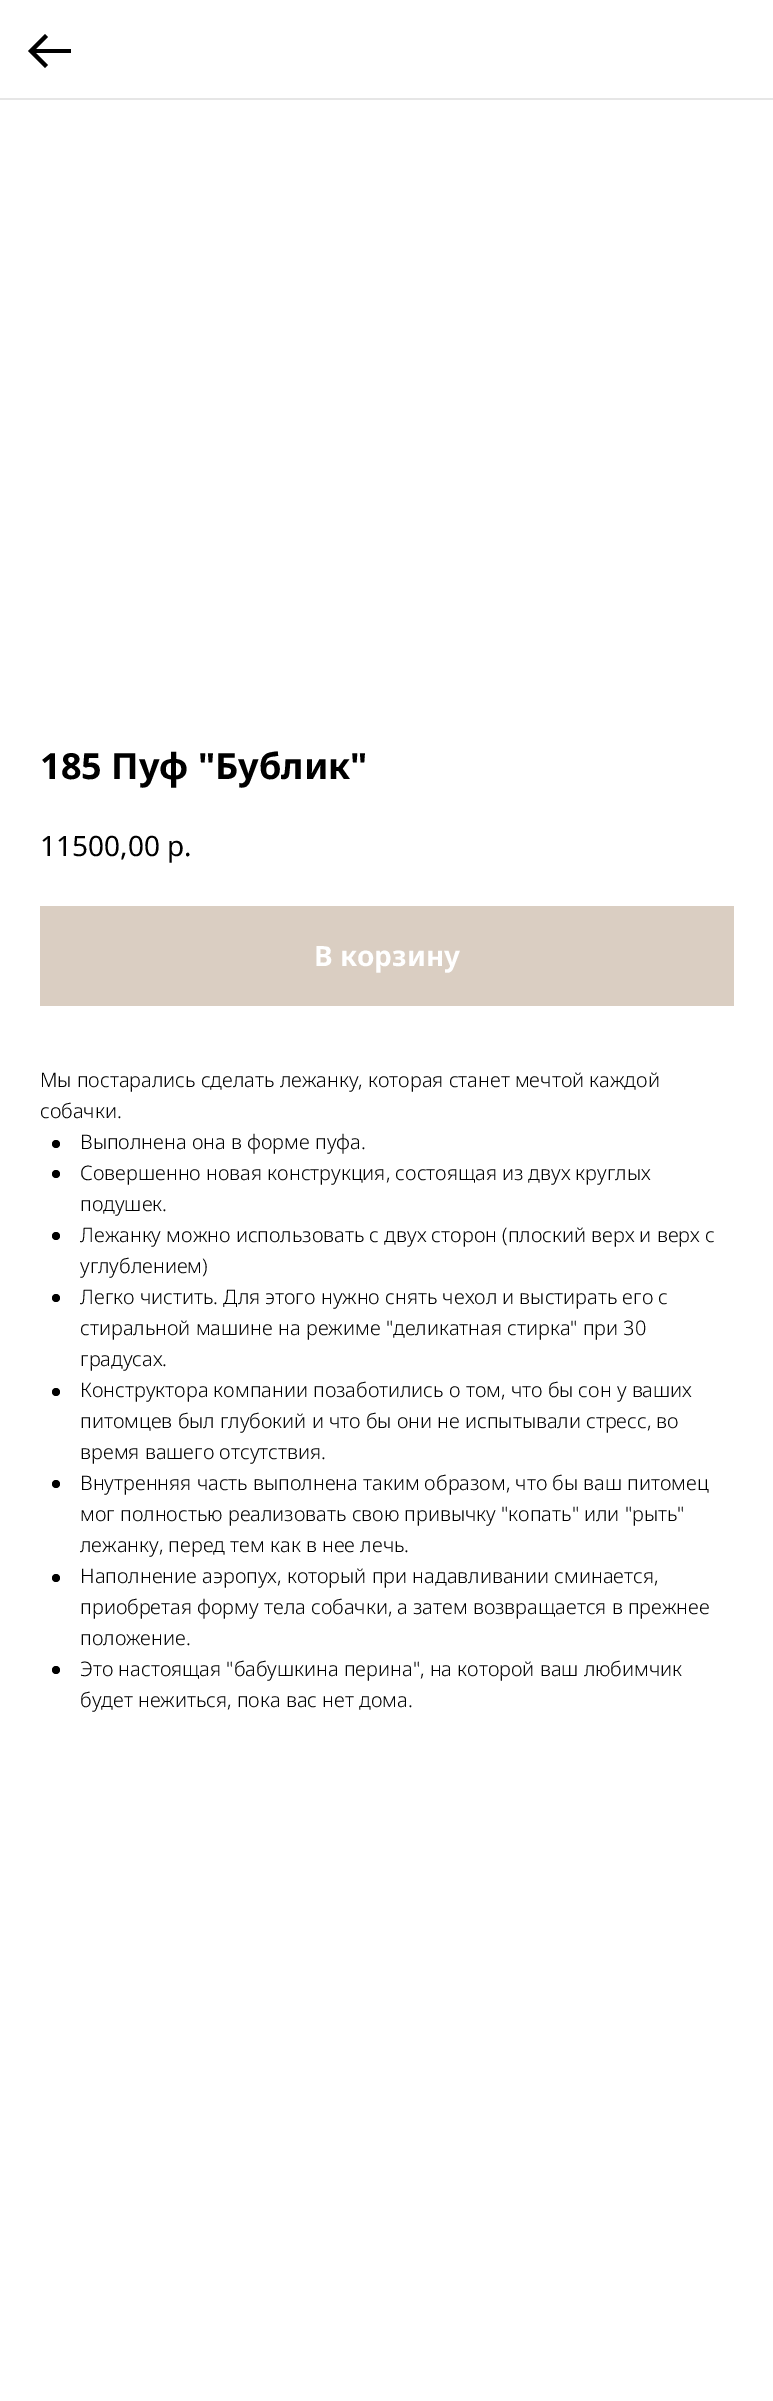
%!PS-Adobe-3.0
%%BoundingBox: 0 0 773 2401
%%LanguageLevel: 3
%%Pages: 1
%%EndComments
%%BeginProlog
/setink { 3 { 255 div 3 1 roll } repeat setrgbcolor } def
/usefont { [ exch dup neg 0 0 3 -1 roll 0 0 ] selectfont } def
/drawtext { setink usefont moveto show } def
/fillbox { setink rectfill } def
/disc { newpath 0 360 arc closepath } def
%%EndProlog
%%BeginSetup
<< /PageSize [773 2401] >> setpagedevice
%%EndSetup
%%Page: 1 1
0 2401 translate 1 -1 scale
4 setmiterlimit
0 0 773 2401 255 255 255 fillbox
0 98 773 2 230 230 230 fillbox
0 0 0 setink
45 34 moveto 48 37 lineto 36 49 lineto 71 49 lineto 71 53 lineto 36 53 lineto 48 65 lineto 45 68 lineto 28 51 lineto closepath fill
(185 Пуф "Бублик") 40 779 /NotoSans-Bold 36 0 0 0 drawtext
(11500,00) 40 856 /NotoSans-Regular 28 0 0 0 drawtext
(р.) 167 856 /NotoSans-Regular 28 0 0 0 drawtext
40 906 694 100 218 206 194 fillbox
(В корзину) 314 966 /NotoSans-Bold 28 255 255 255 drawtext
(Мы постарались сделать лежанку, которая станет мечтой каждой) 40 1087 /NotoSans-Light 20 0 0 0 drawtext
(собачки.) 40 1118 /NotoSans-Light 20 0 0 0 drawtext
56 1144 4 disc fill
(Выполнена она в форме пуфа.) 80 1149 /NotoSans-Light 20 0 0 0 drawtext
56 1174 4 disc fill
(Совершенно новая конструкция, состоящая из двух круглых) 80 1180 /NotoSans-Light 20 0 0 0 drawtext
(подушек.) 80 1211 /NotoSans-Light 20 0 0 0 drawtext
56 1236 4 disc fill
(Лежанку можно использовать с двух сторон \(плоский верх и верх с) 80 1242 /NotoSans-Light 20 0 0 0 drawtext
(углублением\)) 80 1273 /NotoSans-Light 20 0 0 0 drawtext
56 1298 4 disc fill
(Легко чистить. Для этого нужно снять чехол и выстирать его с) 80 1304 /NotoSans-Light 20 0 0 0 drawtext
(стиральной машине на режиме "деликатная стирка" при 30) 80 1335 /NotoSans-Light 20 0 0 0 drawtext
(градусах.) 80 1366 /NotoSans-Light 20 0 0 0 drawtext
56 1392 4 disc fill
(Конструктора компании позаботились о том, что бы сон у ваших) 80 1397 /NotoSans-Light 20 0 0 0 drawtext
(питомцев был глубокий и что бы они не испытывали стресс, во) 80 1428 /NotoSans-Light 20 0 0 0 drawtext
(время вашего отсутствия.) 80 1459 /NotoSans-Light 20 0 0 0 drawtext
56 1484 4 disc fill
(Внутренняя часть выполнена таким образом, что бы ваш питомец) 80 1490 /NotoSans-Light 20 0 0 0 drawtext
(мог полностью реализовать свою привычку "копать" или "рыть") 80 1521 /NotoSans-Light 20 0 0 0 drawtext
(лежанку, перед тем как в нее лечь.) 80 1552 /NotoSans-Light 20 0 0 0 drawtext
56 1578 4 disc fill
(Наполнение аэропух, который при надавливании сминается,) 80 1583 /NotoSans-Light 20 0 0 0 drawtext
(приобретая форму тела собачки, а затем возвращается в прежнее) 80 1614 /NotoSans-Light 20 0 0 0 drawtext
(положение.) 80 1645 /NotoSans-Light 20 0 0 0 drawtext
56 1670 4 disc fill
(Это настоящая "бабушкина перина", на которой ваш любимчик) 80 1676 /NotoSans-Light 20 0 0 0 drawtext
(будет нежиться, пока вас нет дома.) 80 1707 /NotoSans-Light 20 0 0 0 drawtext
showpage
%%EOF
